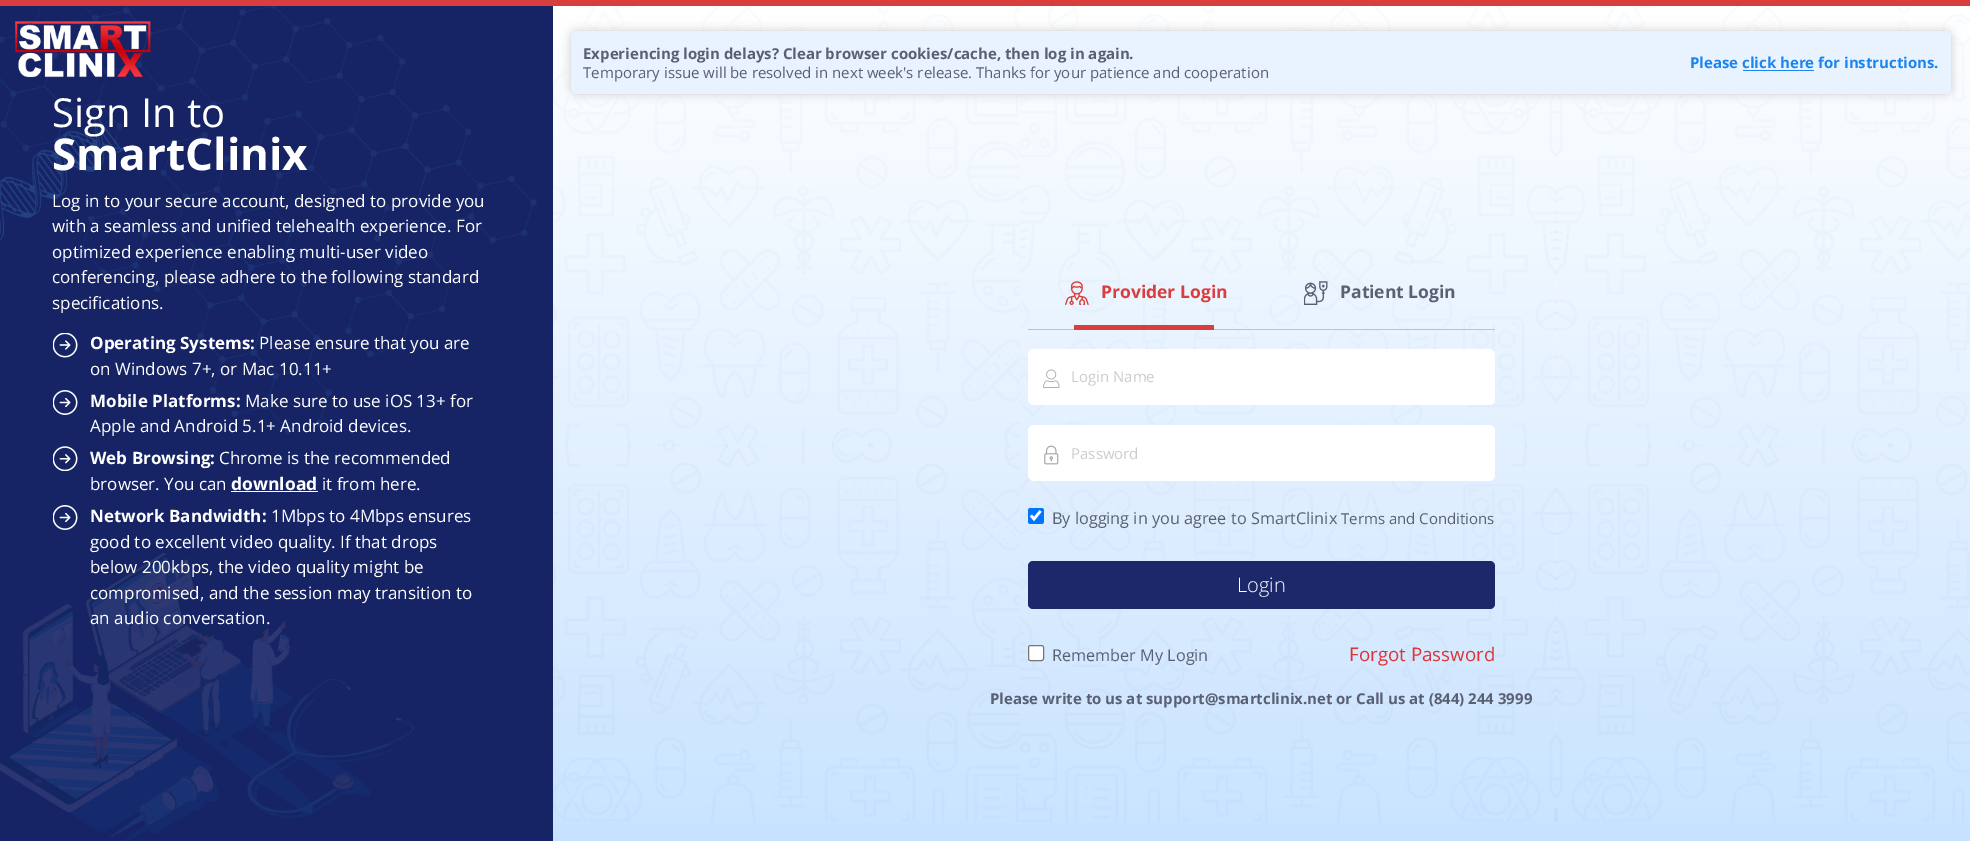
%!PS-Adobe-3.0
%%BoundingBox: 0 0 1970 841
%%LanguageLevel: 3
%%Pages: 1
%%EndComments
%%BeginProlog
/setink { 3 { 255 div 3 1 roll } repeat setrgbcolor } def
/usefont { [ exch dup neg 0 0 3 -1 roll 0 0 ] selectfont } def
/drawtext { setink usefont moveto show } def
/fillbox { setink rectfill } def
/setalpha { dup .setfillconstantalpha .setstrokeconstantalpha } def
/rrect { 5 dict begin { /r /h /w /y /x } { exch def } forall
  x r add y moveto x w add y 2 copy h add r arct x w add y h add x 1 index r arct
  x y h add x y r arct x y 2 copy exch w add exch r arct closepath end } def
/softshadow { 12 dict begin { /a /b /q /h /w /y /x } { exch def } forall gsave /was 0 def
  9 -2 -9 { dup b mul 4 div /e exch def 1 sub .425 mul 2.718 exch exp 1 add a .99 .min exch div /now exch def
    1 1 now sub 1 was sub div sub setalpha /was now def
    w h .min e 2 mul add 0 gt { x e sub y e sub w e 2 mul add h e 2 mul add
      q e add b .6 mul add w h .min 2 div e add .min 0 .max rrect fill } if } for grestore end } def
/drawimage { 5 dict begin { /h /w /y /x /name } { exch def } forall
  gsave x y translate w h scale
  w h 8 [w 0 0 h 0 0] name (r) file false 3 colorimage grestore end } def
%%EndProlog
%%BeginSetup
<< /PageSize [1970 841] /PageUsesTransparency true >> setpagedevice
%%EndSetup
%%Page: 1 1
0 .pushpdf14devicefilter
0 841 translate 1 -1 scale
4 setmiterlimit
0 0 1970 841 255 255 255 fillbox
gsave 553 38 moveto 1970 38 lineto 1970 841 lineto 553 841 lineto closepath clip newpath
<< /ShadingType 2 /ColorSpace /DeviceRGB /Coords [985 0 985 841] /Extend [true true] /Function << /FunctionType 2 /Domain [0 1] /C0 [1 1 1] /C1 [0.78 0.886 1] /N 1 >> >> shfill grestore
(assets/img1.rgb) 553 6 1417 816 drawimage
0 0 1970 6 216 62 62 fillbox
0 6 553 835 22 35 100 fillbox
(assets/img2.rgb) 0 6 537 835 drawimage
(assets/img3.rgb) 15 21 136 57 drawimage
(Sign In to) 52 127 /OpenSans-Regular 40 255 255 255 drawtext
(SmartClinix) 52 170 /OpenSans-Bold 44 255 255 255 drawtext
(Log in to your secure account, designed to provide you) 52 207 /OpenSans-Regular 17 255 255 255 drawtext
(with a seamless and unified telehealth experience. For) 52 232 /OpenSans-Regular 17 255 255 255 drawtext
(optimized experience enabling multi-user video) 52 258 /OpenSans-Regular 17 255 255 255 drawtext
(conferencing, please adhere to the following standard) 52 283 /OpenSans-Regular 17 255 255 255 drawtext
(specifications.) 52 309 /OpenSans-Regular 17 255 255 255 drawtext
(assets/img4.rgb) 53 333 25 25 drawimage
(Operating Systems:) 90 349 /OpenSans-Bold 17 255 255 255 drawtext
(Please ensure that you are) 259 349 /OpenSans-Regular 17 255 255 255 drawtext
(on Windows 7+, or Mac 10.11+) 90 375 /OpenSans-Regular 17 255 255 255 drawtext
(assets/img5.rgb) 53 390 25 25 drawimage
(Mobile Platforms:) 90 407 /OpenSans-Bold 17 255 255 255 drawtext
(Make sure to use iOS 13+ for) 245 407 /OpenSans-Regular 17 255 255 255 drawtext
(Apple and Android 5.1+ Android devices.) 90 432 /OpenSans-Regular 17 255 255 255 drawtext
(assets/img6.rgb) 53 446 25 25 drawimage
(Web Browsing:) 90 464 /OpenSans-Bold 17 255 255 255 drawtext
(Chrome is the recommended) 219 464 /OpenSans-Regular 17 255 255 255 drawtext
(browser. You can) 90 490 /OpenSans-Regular 17 255 255 255 drawtext
(download) 231 490 /OpenSans-Bold 17.5 255 255 255 drawtext
231 491 87 1 255 255 255 fillbox
(it from here.) 322 490 /OpenSans-Regular 17 255 255 255 drawtext
(assets/img5.rgb) 53 505 25 25 drawimage
(Network Bandwidth:) 90 522 /OpenSans-Bold 17 255 255 255 drawtext
(1Mbps to 4Mbps ensures) 271 522 /OpenSans-Regular 17 255 255 255 drawtext
(good to excellent video quality. If that drops) 90 548 /OpenSans-Regular 17 255 255 255 drawtext
(below 200kbps, the video quality might be) 90 573 /OpenSans-Regular 17 255 255 255 drawtext
(compromised, and the session may transition to) 90 599 /OpenSans-Regular 17 255 255 255 drawtext
(an audio conversation.) 90 624 /OpenSans-Regular 17 255 255 255 drawtext
204 204 204 setink
571 31 1380 63 6 4.5 1 softshadow
233 243 255 setink
571 31 1380 63 6 rrect fill
(Experiencing login delays? Clear browser cookies/cache, then log in again.) 583 59 /OpenSans-Bold 15 90 95 114 drawtext
(Temporary issue will be resolved in next week's release. Thanks for your patience and cooperation) 583 78 /OpenSans-Regular 15 90 95 114 drawtext
(Please click here for instructions.) 1690 68 /OpenSans-Bold 15 28 132 238 drawtext
1743 70 71 1 28 132 238 fillbox
1028 329 467 1 194 194 194 fillbox
(assets/img7.rgb) 1065 281 24 24 drawimage
(Provider Login) 1101 298 /OpenSans-Bold 17.5 216 62 62 drawtext
1074 325 140 5 216 62 62 fillbox
(assets/img8.rgb) 1304 281 24 24 drawimage
(Patient Login) 1340 298 /OpenSans-Bold 17.5 90 95 114 drawtext
255 255 255 setink
1028 349 467 56 6 rrect fill
(assets/img9.rgb) 1043 369 17 19 drawimage
(Login Name) 1071 382 /OpenSans-Regular 15 204 204 204 drawtext
255 255 255 setink
1028 425 467 56 6 rrect fill
(assets/img10.rgb) 1044 445 15 20 drawimage
(Password) 1071 459 /OpenSans-Regular 15 204 204 204 drawtext
0 117 255 setink
1028 508 16 16 2.5 rrect fill
255 255 255 setink
2.6 setlinewidth
1031 515.5 moveto 1034 519 lineto 1040.5 511 lineto stroke
(By logging in you agree to SmartClinix) 1052 524 /OpenSans-Regular 16.25 90 95 114 drawtext
(Terms and Conditions) 1341 524 /OpenSans-Regular 15 90 95 114 drawtext
28 40 106 setink
1028 561 467 48 5 rrect fill
(Login) 1237 592 /OpenSans-Light 20 255 255 255 drawtext
1028.5 645.5 15 15 2 rrect gsave fill grestore
118 118 118 setink
1 setlinewidth
stroke
(Remember My Login) 1052 661 /OpenSans-Regular 16.25 90 95 114 drawtext
(Forgot Password) 1349 661 /OpenSans-Regular 18.75 220 53 53 drawtext
(Please write to us at support@smartclinix.net or Call us at \(844\) 244 3999) 990 704 /OpenSans-Bold 15 90 95 114 drawtext
.poppdf14devicefilter showpage
%%EOF
